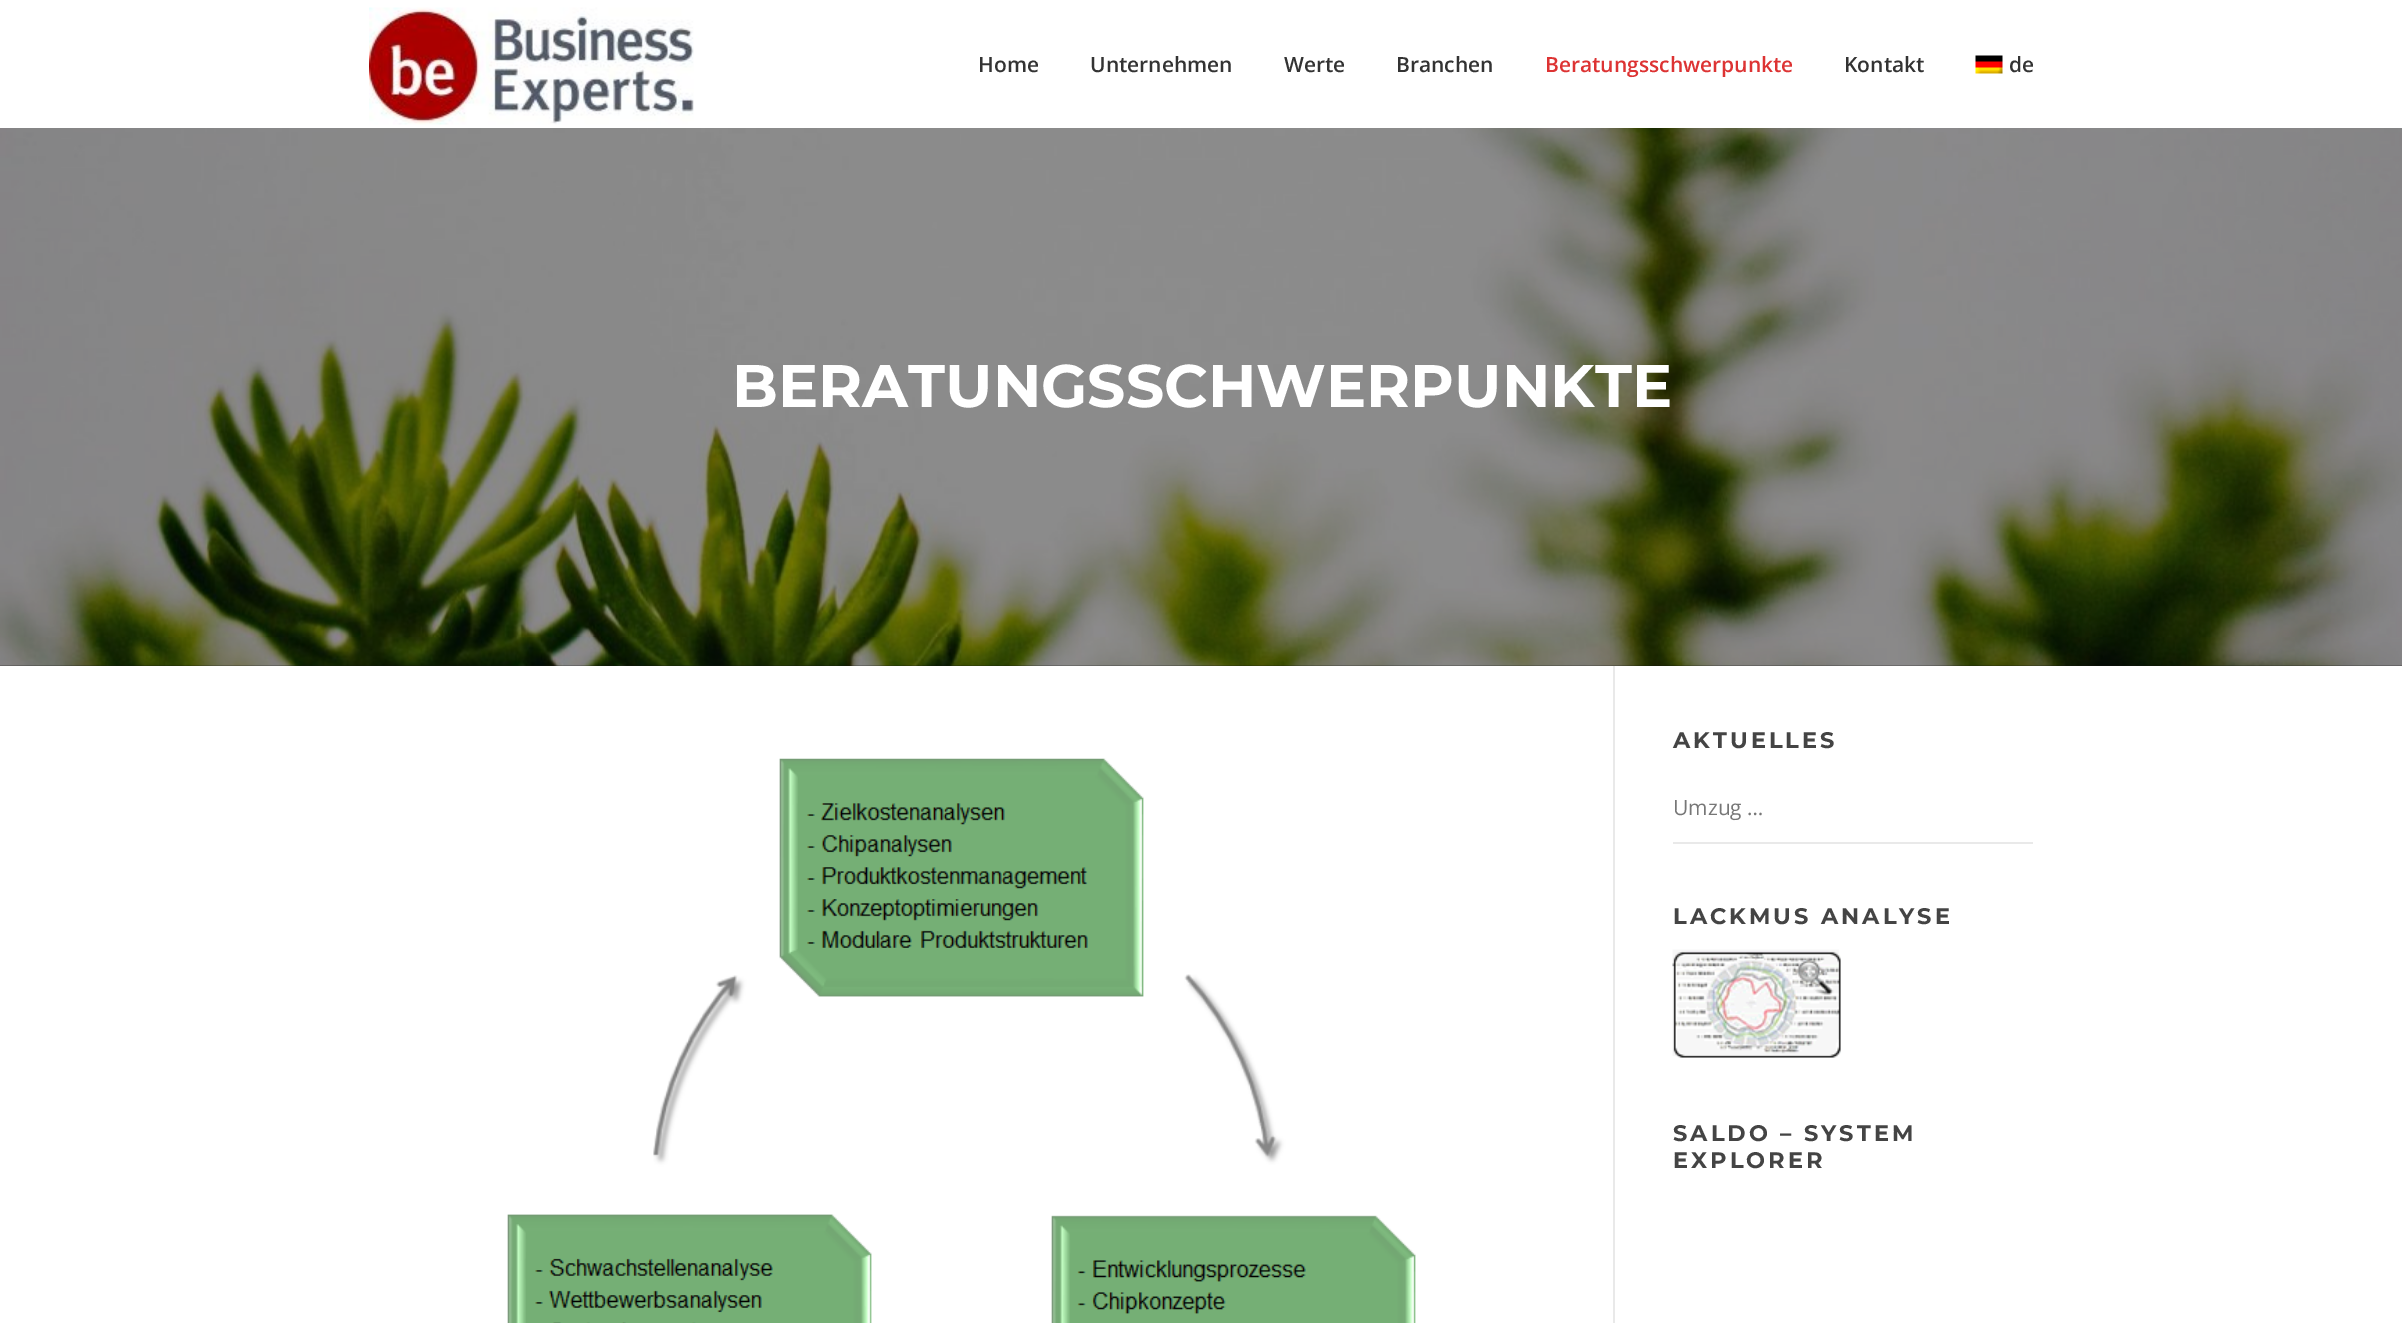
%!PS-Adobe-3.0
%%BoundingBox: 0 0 2402 1323
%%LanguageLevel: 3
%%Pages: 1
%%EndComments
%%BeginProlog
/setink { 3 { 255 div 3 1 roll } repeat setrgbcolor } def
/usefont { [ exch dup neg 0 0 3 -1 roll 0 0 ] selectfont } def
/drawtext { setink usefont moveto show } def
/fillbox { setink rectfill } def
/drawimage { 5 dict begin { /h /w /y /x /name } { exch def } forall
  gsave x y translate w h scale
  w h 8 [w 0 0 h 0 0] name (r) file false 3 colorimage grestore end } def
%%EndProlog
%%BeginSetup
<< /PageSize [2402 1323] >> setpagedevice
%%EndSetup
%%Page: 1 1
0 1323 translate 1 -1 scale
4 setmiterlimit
0 0 2402 1323 255 255 255 fillbox
(assets/img1.rgb) 369 7 325 118 drawimage
(Home) 978 72 /OpenSans-SemiBold 21 51 51 51 drawtext
(Unternehmen) 1090 72 /OpenSans-SemiBold 21 51 51 51 drawtext
(Werte) 1284 72 /OpenSans-SemiBold 21 51 51 51 drawtext
(Branchen) 1396 72 /OpenSans-SemiBold 21 51 51 51 drawtext
(Beratungsschwerpunkte) 1545 72 /OpenSans-SemiBold 21 221 51 51 drawtext
(Kontakt) 1844 72 /OpenSans-SemiBold 21 51 51 51 drawtext
(assets/img2.rgb) 1975 55 28 19 drawimage
(de) 2009 72 /OpenSans-SemiBold 21 51 51 51 drawtext
(assets/img3.rgb) 0 128 2402 538 drawimage
(BERATUNGSSCHWERPUNKTE) 732 407 /Montserrat-Bold 60 255 255 255 drawtext
1613 666 2 657 233 233 233 fillbox
(assets/img4.rgb) 507 758 909 565 drawimage
/Montserrat-Bold 22.5 usefont
68 68 68 setink
1673 748 moveto 3 0 (AKTUELLES) ashow
1673 842 360 2 233 233 233 fillbox
(Umzug …) 1673 815 /OpenSans-Regular 21 119 119 119 drawtext
/Montserrat-Bold 22.5 usefont
68 68 68 setink
1673 924 moveto 3 0 (LACKMUS ANALYSE) ashow
(assets/img5.rgb) 1672 949 169 109 drawimage
1673 1141 moveto 3 0 (SALDO – SYSTEM) ashow
1673 1168 moveto 3 0 (EXPLORER) ashow
showpage
%%EOF
